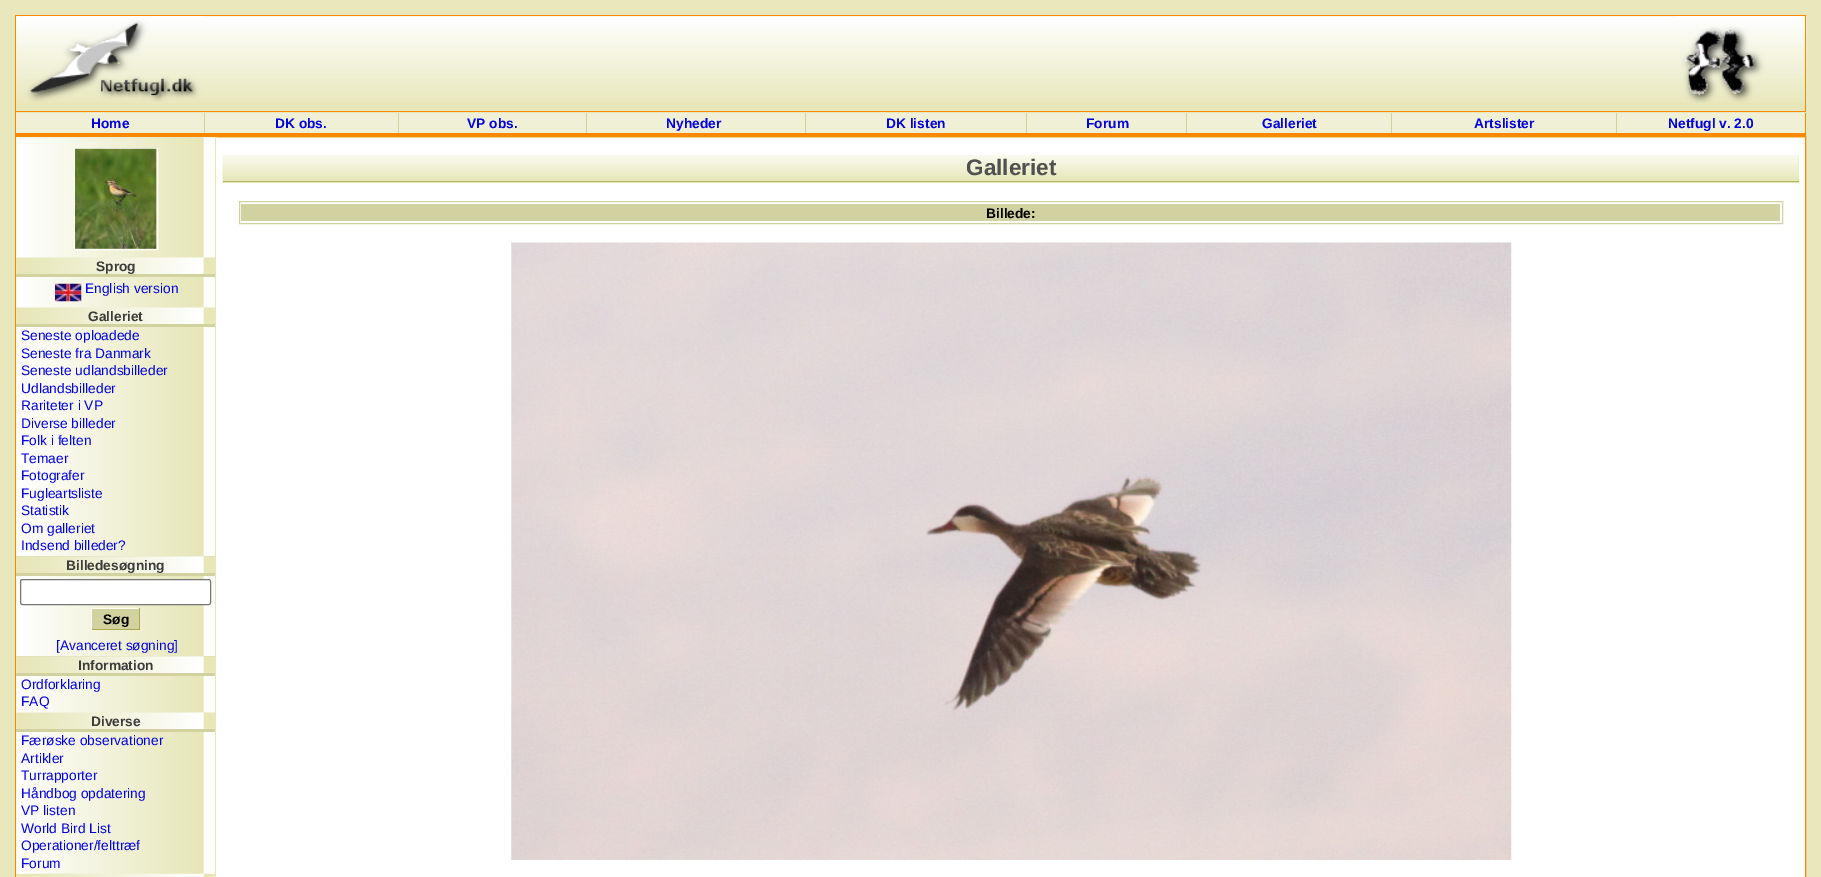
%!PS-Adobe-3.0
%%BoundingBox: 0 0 1821 877
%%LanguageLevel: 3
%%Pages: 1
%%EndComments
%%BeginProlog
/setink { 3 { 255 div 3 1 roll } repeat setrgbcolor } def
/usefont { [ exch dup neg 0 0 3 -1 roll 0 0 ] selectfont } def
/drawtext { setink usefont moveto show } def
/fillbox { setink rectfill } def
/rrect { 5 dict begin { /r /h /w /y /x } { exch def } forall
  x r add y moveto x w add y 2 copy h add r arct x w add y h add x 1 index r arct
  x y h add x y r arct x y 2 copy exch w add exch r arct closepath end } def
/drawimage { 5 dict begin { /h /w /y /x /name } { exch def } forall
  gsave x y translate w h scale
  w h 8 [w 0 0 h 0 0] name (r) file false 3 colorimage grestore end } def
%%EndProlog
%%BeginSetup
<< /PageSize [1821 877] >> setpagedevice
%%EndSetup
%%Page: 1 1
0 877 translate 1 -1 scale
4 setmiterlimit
0 0 1821 877 232 232 188 fillbox
16 16 1789 95 230 230 184 fillbox
(assets/img1.rgb) 16 16 1791 87 drawimage
15 15 1791 1 253 137 0 fillbox
1805 15 1 96 253 137 0 fillbox
15 15 1 96 253 137 0 fillbox
(assets/img2.rgb) 17 16 188 86 drawimage
(assets/img3.rgb) 1675 16 129 87 drawimage
16 113 1789 20 240 240 215 fillbox
15 111 1791 1 253 137 0 fillbox
15 133 1791 1 253 137 0 fillbox
15 111 1 26 253 137 0 fillbox
204 113 1 20 210 210 160 fillbox
(Home) 91 128 /LiberationSans-Bold 13.75 0 0 220 drawtext
398 113 1 20 210 210 160 fillbox
(DK obs.) 275 128 /LiberationSans-Bold 13.75 0 0 220 drawtext
586 113 1 20 210 210 160 fillbox
(VP obs.) 467 128 /LiberationSans-Bold 13.75 0 0 220 drawtext
805 113 1 20 210 210 160 fillbox
(Nyheder) 666 128 /LiberationSans-Bold 13.75 0 0 220 drawtext
1026 113 1 20 210 210 160 fillbox
(DK listen) 886 128 /LiberationSans-Bold 13.75 0 0 220 drawtext
1186 113 1 20 210 210 160 fillbox
(Forum) 1086 128 /LiberationSans-Bold 13.75 0 0 220 drawtext
1391 113 1 20 210 210 160 fillbox
(Galleriet) 1262 128 /LiberationSans-Bold 13.75 0 0 220 drawtext
1616 113 1 20 210 210 160 fillbox
(Artslister) 1474 128 /LiberationSans-Bold 13.75 0 0 220 drawtext
1805 113 1 20 253 137 0 fillbox
(Netfugl v. 2.0) 1668 128 /LiberationSans-Bold 13.75 0 0 220 drawtext
1805 134 1 3 253 137 0 fillbox
16 134 1789 2 253 137 0 fillbox
15.5 136.5 1790 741 rectstroke
(assets/img6.rgb) 16 137 201 740 drawimage
216 138 1589 739 255 255 255 fillbox
223 155 1576 28 230 230 182 fillbox
(assets/img4.rgb) 222 155 1577 28 drawimage
223 181 1576 1 181 181 100 fillbox
(Galleriet) 966 175 /LiberationSans-Bold 22.5 80 80 80 drawtext
210 210 160 setink
239.5 201.5 1543 22 rectstroke
241 204 1539 17 210 210 160 fillbox
(Billede:) 986 218 /LiberationSans-Bold 13.75 0 0 0 drawtext
(assets/img5.rgb) 511 242 1001 618 drawimage
215 138 1 739 230 230 182 fillbox
255 255 255 setink
74.5 148.5 83 101 rectstroke
(assets/img7.rgb) 75 148 82 101 drawimage
(assets/img8.rgb) 16 257 199 17 drawimage
16 274 199 3 210 210 160 fillbox
(Sprog) 96 271 /LiberationSans-Bold 13.75 60 60 60 drawtext
(assets/img9.rgb) 55 283 27 19 drawimage
(English version) 85 293 /LiberationSans-Regular 13.75 0 0 220 drawtext
(assets/img10.rgb) 16 307 199 17 drawimage
16 324 199 3 210 210 160 fillbox
(Galleriet) 88 321 /LiberationSans-Bold 13.75 60 60 60 drawtext
(Seneste oploadede) 21 340 /LiberationSans-Regular 13.75 0 0 220 drawtext
(Seneste fra Danmark) 21 358 /LiberationSans-Regular 13.75 0 0 220 drawtext
(Seneste udlandsbilleder) 21 375 /LiberationSans-Regular 13.75 0 0 220 drawtext
(Udlandsbilleder) 21 393 /LiberationSans-Regular 13.75 0 0 220 drawtext
(Rariteter i VP) 21 410 /LiberationSans-Regular 13.75 0 0 220 drawtext
(Diverse billeder) 21 428 /LiberationSans-Regular 13.75 0 0 220 drawtext
(Folk i felten) 21 445 /LiberationSans-Regular 13.75 0 0 220 drawtext
(Temaer) 21 463 /LiberationSans-Regular 13.75 0 0 220 drawtext
(Fotografer) 21 480 /LiberationSans-Regular 13.75 0 0 220 drawtext
(Fugleartsliste) 21 498 /LiberationSans-Regular 13.75 0 0 220 drawtext
(Statistik) 21 515 /LiberationSans-Regular 13.75 0 0 220 drawtext
(Om galleriet) 21 533 /LiberationSans-Regular 13.75 0 0 220 drawtext
(Indsend billeder?) 21 550 /LiberationSans-Regular 13.75 0 0 220 drawtext
16 556 199 20 210 210 160 fillbox
(assets/img11.rgb) 16 556 199 17 drawimage
(Billedesøgning) 66 570 /LiberationSans-Bold 13.75 60 60 60 drawtext
255 255 255 setink
20.5 579.5 190 25 2 rrect gsave fill grestore
118 118 118 setink
stroke
92 609 47 20 210 210 160 fillbox
91 608 49 1 252 252 245 fillbox
139 608 1 22 170 170 77 fillbox
91 629 49 1 170 170 77 fillbox
91 608 1 22 252 252 245 fillbox
(Søg) 103 624 /LiberationSans-Bold 13.75 0 0 0 drawtext
([Avanceret søgning]) 56 650 /LiberationSans-Regular 13.75 0 0 220 drawtext
16 656 199 20 210 210 160 fillbox
(assets/img12.rgb) 16 656 199 17 drawimage
(Information) 78 670 /LiberationSans-Bold 13.75 60 60 60 drawtext
(Ordforklaring) 21 689 /LiberationSans-Regular 13.75 0 0 220 drawtext
(FAQ) 21 706 /LiberationSans-Regular 13.75 0 0 220 drawtext
(assets/img13.rgb) 16 712 199 17 drawimage
16 729 199 3 210 210 160 fillbox
(Diverse) 91 726 /LiberationSans-Bold 13.75 60 60 60 drawtext
(Færøske observationer) 21 745 /LiberationSans-Regular 13.75 0 0 220 drawtext
(Artikler) 21 763 /LiberationSans-Regular 13.75 0 0 220 drawtext
(Turrapporter) 21 780 /LiberationSans-Regular 13.75 0 0 220 drawtext
(Håndbog opdatering) 21 798 /LiberationSans-Regular 13.75 0 0 220 drawtext
(VP listen) 21 815 /LiberationSans-Regular 13.75 0 0 220 drawtext
(World Bird List) 21 833 /LiberationSans-Regular 13.75 0 0 220 drawtext
(Operationer/felttræf) 21 850 /LiberationSans-Regular 13.75 0 0 220 drawtext
(Forum) 21 868 /LiberationSans-Regular 13.75 0 0 220 drawtext
(assets/img14.rgb) 16 873 199 4 drawimage
showpage
%%EOF
